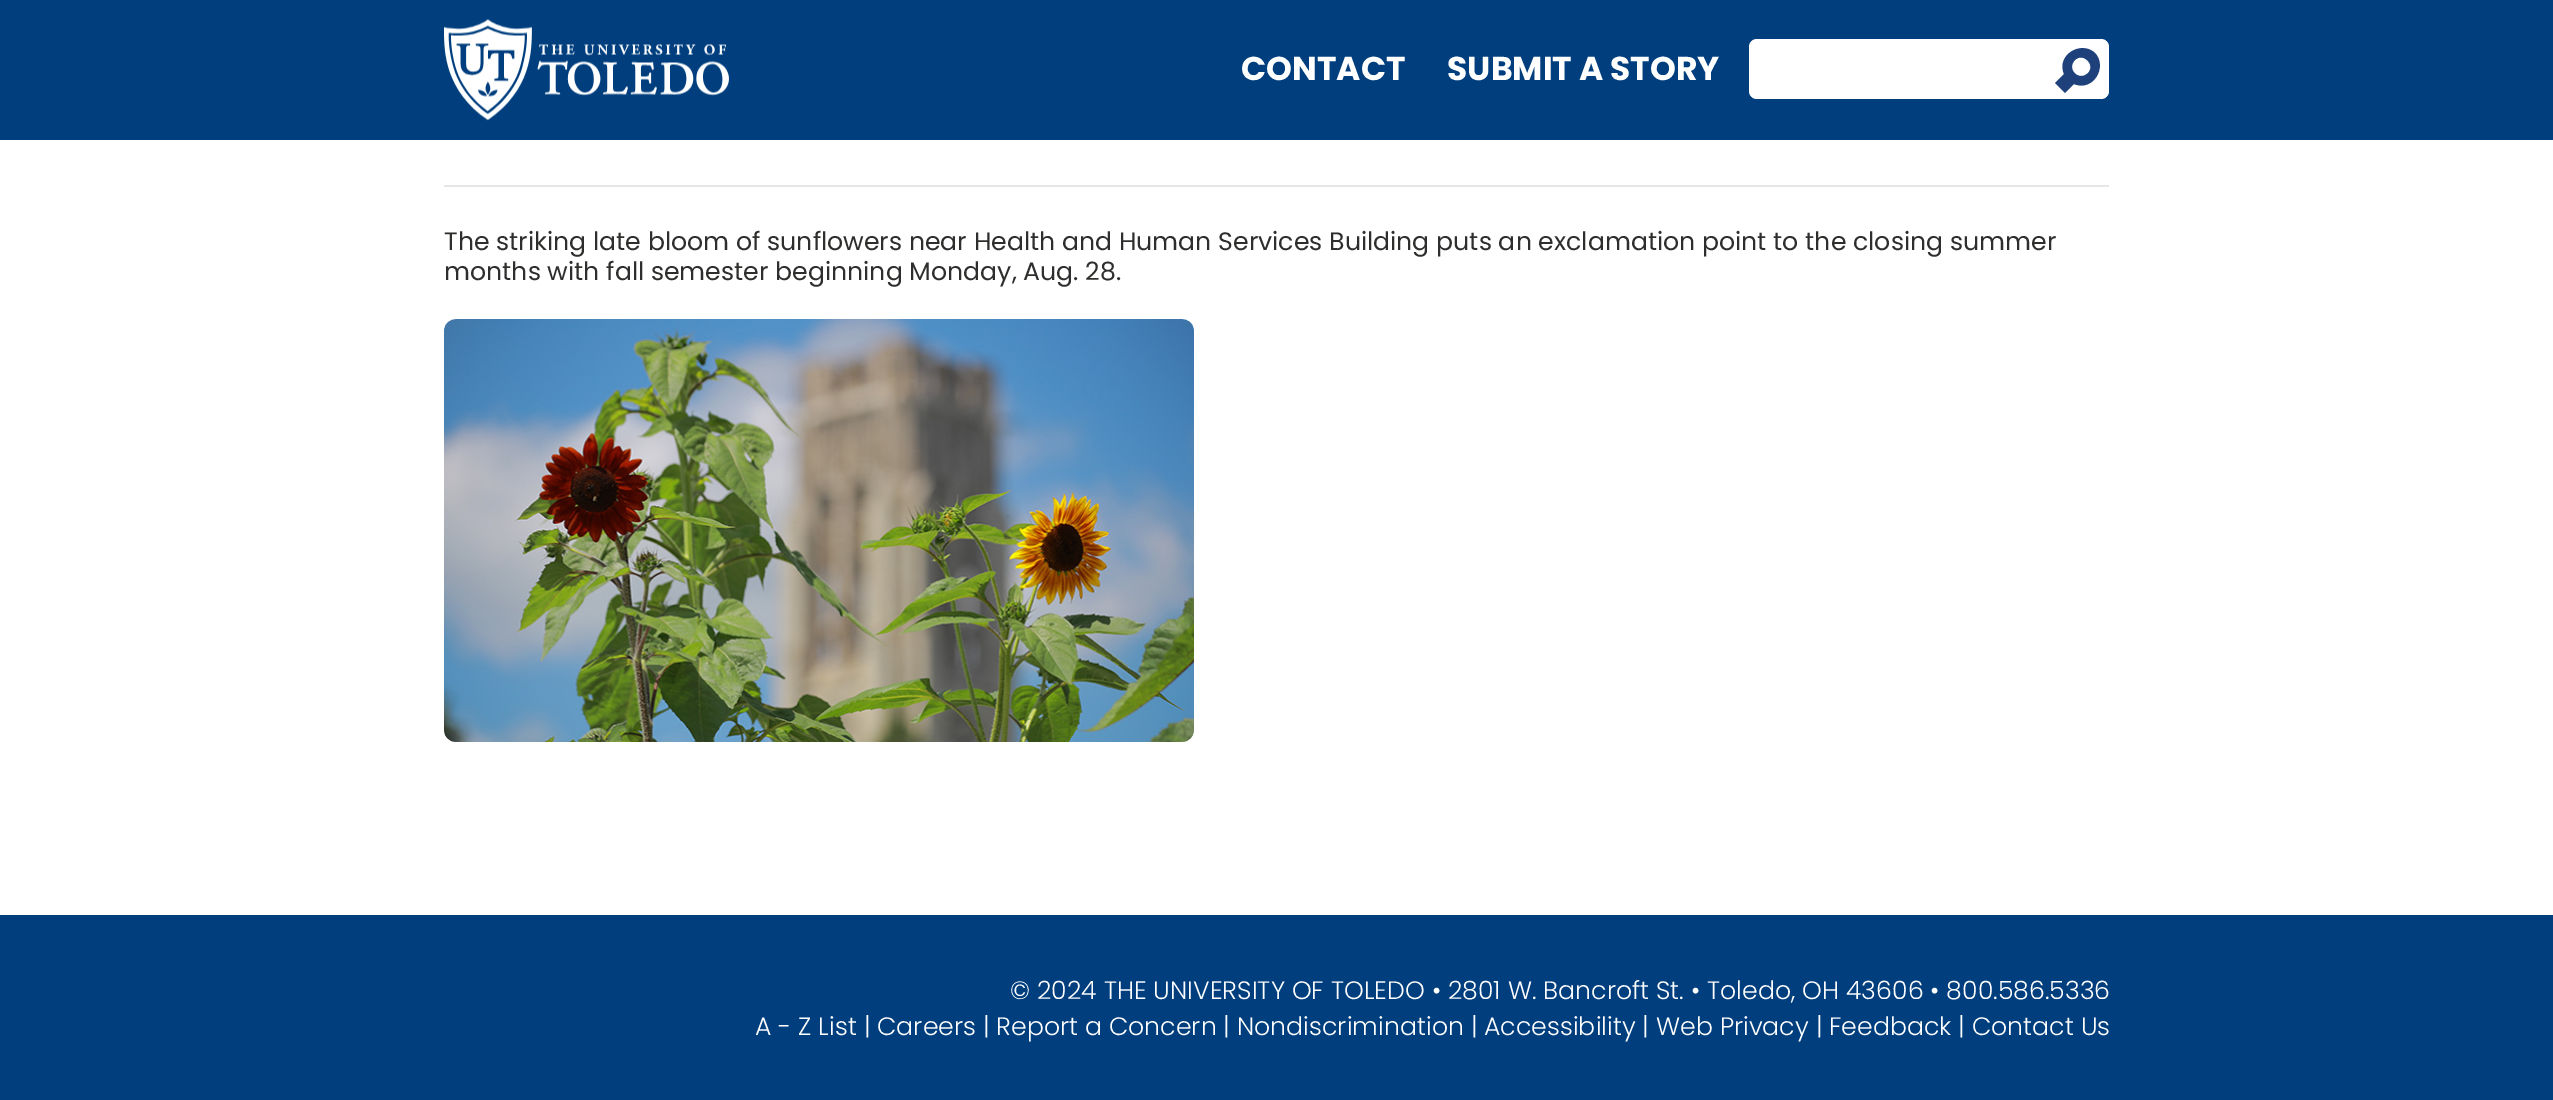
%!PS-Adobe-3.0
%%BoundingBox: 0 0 2553 1100
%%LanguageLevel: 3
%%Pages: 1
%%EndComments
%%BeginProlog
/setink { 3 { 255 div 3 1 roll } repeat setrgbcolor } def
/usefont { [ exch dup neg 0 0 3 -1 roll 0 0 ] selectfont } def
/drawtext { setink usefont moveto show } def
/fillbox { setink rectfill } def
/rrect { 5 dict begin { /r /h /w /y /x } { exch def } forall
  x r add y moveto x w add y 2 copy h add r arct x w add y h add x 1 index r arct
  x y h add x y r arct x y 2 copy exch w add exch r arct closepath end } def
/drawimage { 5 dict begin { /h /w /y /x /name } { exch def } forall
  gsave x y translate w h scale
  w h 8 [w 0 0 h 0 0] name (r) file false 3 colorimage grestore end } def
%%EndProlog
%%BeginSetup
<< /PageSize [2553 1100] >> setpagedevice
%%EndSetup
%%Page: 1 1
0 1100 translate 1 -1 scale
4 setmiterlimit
0 0 2553 1100 255 255 255 fillbox
0 0 2553 140 0 62 126 fillbox
(assets/img1.rgb) 444 19 285 102 drawimage
(CONTACT) 1241 80 /Poppins-Bold 33 255 255 255 drawtext
(SUBMIT A STORY) 1447 80 /Poppins-Bold 33 255 255 255 drawtext
1749 39 360 60 8 rrect fill
30 65 124 setink
2095 53 moveto 2108 67 2093 92 2074 84 curveto 2065 93 lineto 2055 83 lineto 2064 74 lineto 2056 55 2081 40 2095 53 curveto closepath 2088 73 moveto 2096 65 2083 52 2075 60 curveto 2066 69 2079 82 2088 73 curveto closepath eofill
444 185 1665 2 230 230 230 fillbox
(The striking late bloom of sunflowers near Health and Human Services Building puts an exclamation point to the closing summer) 444 250 /Poppins-Regular 25.2 46 46 45 drawtext
(months with fall semester beginning Monday, Aug. 28.) 444 280 /Poppins-Regular 25.2 46 46 45 drawtext
(assets/img2.rgb) 444 319 750 423 drawimage
0 915 2553 185 0 62 126 fillbox
(© 2024 THE UNIVERSITY OF TOLEDO • 2801 W. Bancroft St. • Toledo, OH 43606 • 800.586.5336) 1010 999 /Poppins-Light 25.2 255 255 255 drawtext
(A - Z List | Careers | Report a Concern | Nondiscrimination | Accessibility | Web Privacy | Feedback | Contact Us) 755 1035 /Poppins-Light 25.2 255 255 255 drawtext
showpage
%%EOF
